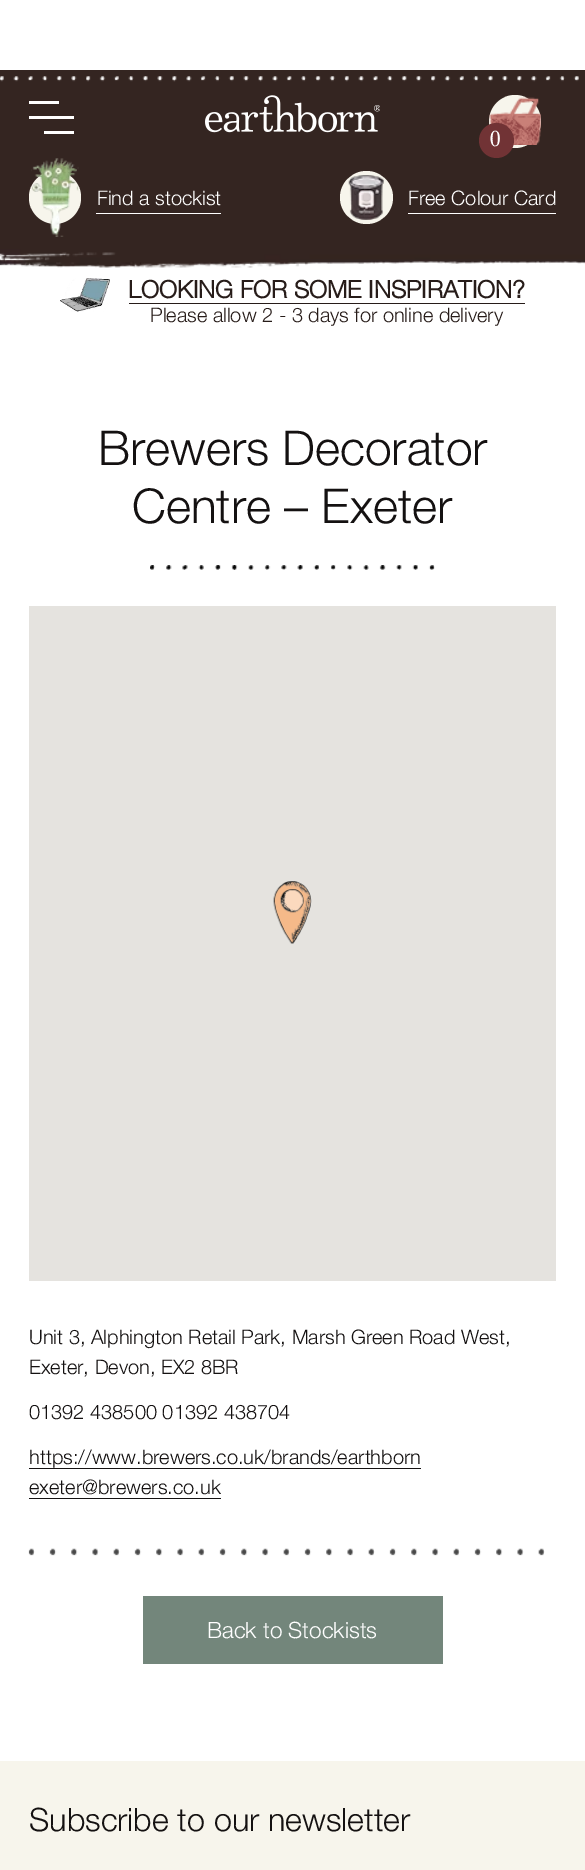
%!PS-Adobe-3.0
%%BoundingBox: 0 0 585 1870
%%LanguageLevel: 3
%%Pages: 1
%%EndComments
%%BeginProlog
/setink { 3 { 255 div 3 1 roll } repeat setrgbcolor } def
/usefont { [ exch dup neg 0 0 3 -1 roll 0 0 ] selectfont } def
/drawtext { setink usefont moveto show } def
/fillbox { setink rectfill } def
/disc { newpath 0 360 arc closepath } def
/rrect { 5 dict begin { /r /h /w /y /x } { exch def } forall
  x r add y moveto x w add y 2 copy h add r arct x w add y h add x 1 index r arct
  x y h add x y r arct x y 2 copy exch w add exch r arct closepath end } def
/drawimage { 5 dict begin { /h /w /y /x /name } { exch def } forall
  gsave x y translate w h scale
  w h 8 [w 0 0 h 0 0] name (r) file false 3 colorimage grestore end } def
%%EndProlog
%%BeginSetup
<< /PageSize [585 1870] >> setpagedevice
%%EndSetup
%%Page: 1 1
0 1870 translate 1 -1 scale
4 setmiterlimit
0 0 585 1870 255 255 255 fillbox
0 70 585 179 52 37 33 fillbox
(assets/img1.rgb) 0 76 579 6 drawimage
29 116 45 3 255 255 255 fillbox
29 101 30 3 255 255 255 fillbox
44 131 30 3 255 255 255 fillbox
(assets/img2.rgb) 205 95 175 38 drawimage
247 245 236 setink
489 95 52 53 26 rrect fill
(assets/img3.rgb) 489 97 52 48 drawimage
113 51 53 setink
496.5 140.5 17.5 disc fill
(0) 489 146 /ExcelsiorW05-Regular 22.5 255 255 255 drawtext
247 245 236 setink
29 171 52 53 26 rrect fill
(assets/img4.rgb) 31 158 48 79 drawimage
96 213 125 1 255 255 255 fillbox
(Find a stockist) 97 205 /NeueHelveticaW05-Light 20 255 255 255 drawtext
247 245 236 setink
366.5 197.5 26.5 disc fill
(assets/img5.rgb) 348 175 36 45 drawimage
408 213 148 1 255 255 255 fillbox
(Free Colour Card) 408 205 /NeueHelveticaW05-Light 20 255 255 255 drawtext
(assets/img6.rgb) 0 249 585 19 drawimage
(assets/img7.rgb) 60 278 50 34 drawimage
(LOOKING FOR SOME INSPIRATION?) 128 298 /NeueHelveticaW05-Bold 24.25 39 28 25 drawtext
129 303 396 1 39 28 25 fillbox
(Please allow 2 - 3 days for online delivery) 150 322 /NeueHelveticaW05-Light 20 39 28 25 drawtext
(assets/img8.rgb) 150 565 285 5 drawimage
(Brewers Decorator) 98 465 /NeueHelveticaW05-Light 48 20 17 17 drawtext
(Centre – Exeter) 132 523 /NeueHelveticaW05-Light 48 20 17 17 drawtext
29 606 527 675 229 227 223 fillbox
(assets/img9.rgb) 273 881 39 63 drawimage
(assets/img10.rgb) 28 1548 517 8 drawimage
(Unit 3, Alphington Retail Park, Marsh Green Road West,) 29 1344 /NeueHelveticaW05-Light 20 20 17 17 drawtext
(Exeter, Devon, EX2 8BR) 29 1374 /NeueHelveticaW05-Light 20 20 17 17 drawtext
(01392 438500 01392 438704) 29 1419 /NeueHelveticaW05-Light 20 20 17 17 drawtext
(https://www.brewers.co.uk/brands/earthborn) 29 1464 /NeueHelveticaW05-Light 20 20 17 17 drawtext
29 1468 392 1 20 17 17 fillbox
(exeter@brewers.co.uk) 29 1494 /NeueHelveticaW05-Light 20 20 17 17 drawtext
29 1498 192 1 20 17 17 fillbox
143 1596 300 68 115 134 123 fillbox
(Back to Stockists) 207 1638 /NeueHelveticaW05-Light 22.5 255 255 255 drawtext
0 1761 585 109 247 245 236 fillbox
(Subscribe to our newsletter) 29 1831 /NeueHelveticaW05-Light 32.2 20 17 17 drawtext
showpage
%%EOF
